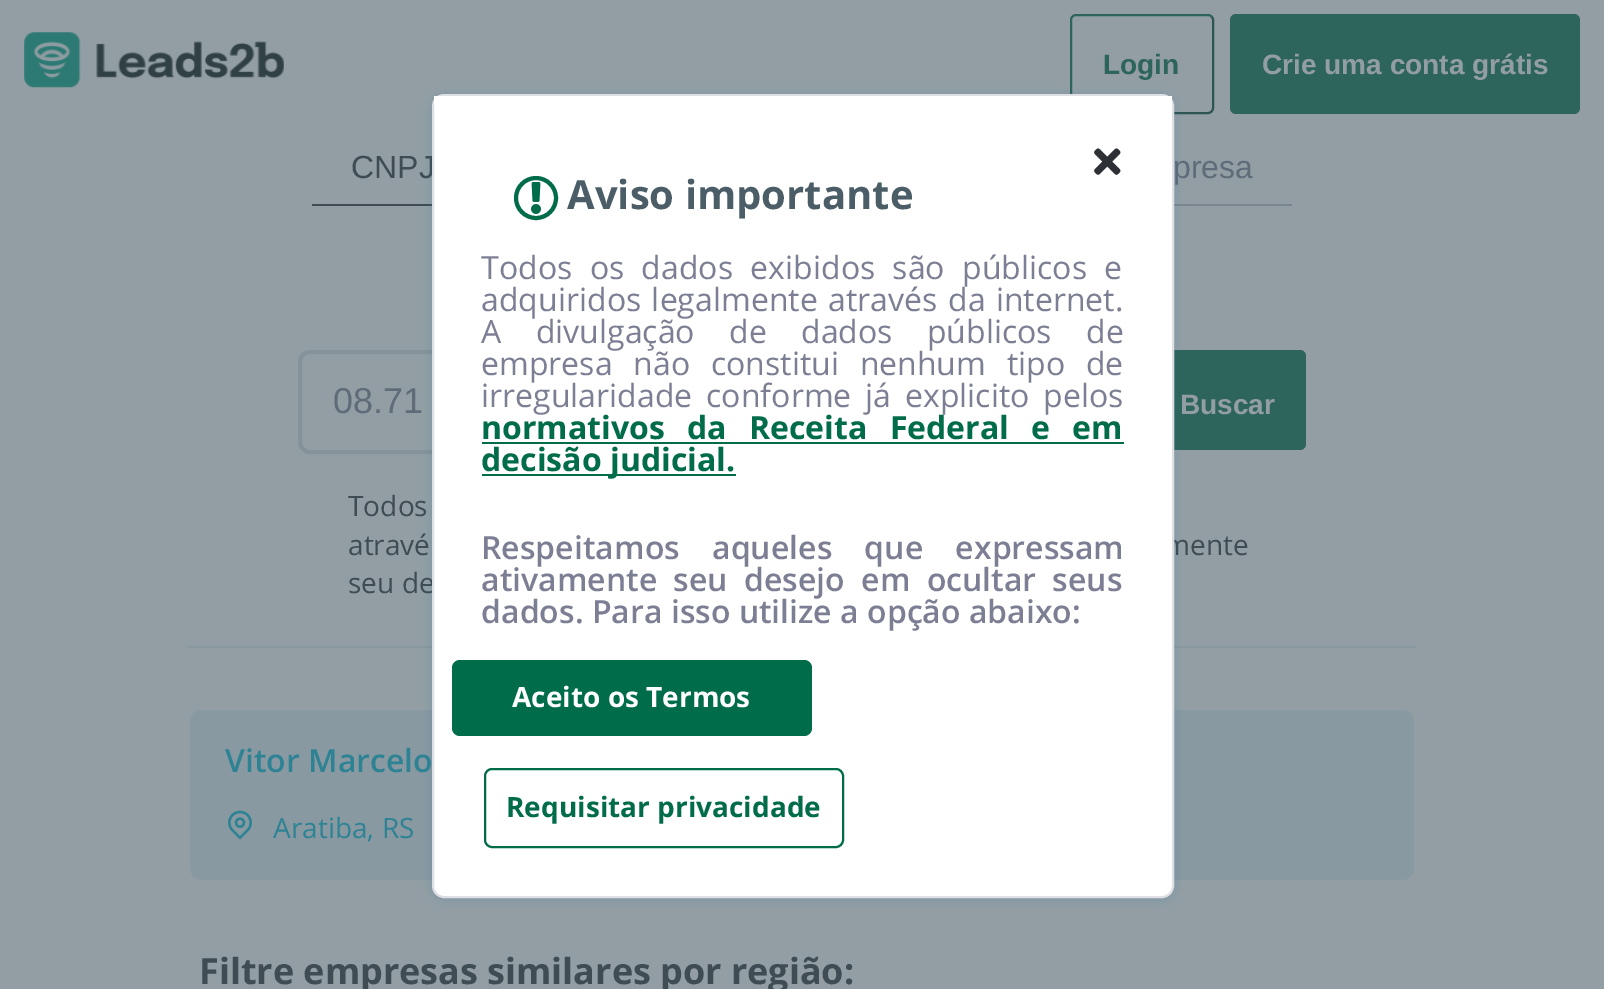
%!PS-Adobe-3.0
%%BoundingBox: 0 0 1604 989
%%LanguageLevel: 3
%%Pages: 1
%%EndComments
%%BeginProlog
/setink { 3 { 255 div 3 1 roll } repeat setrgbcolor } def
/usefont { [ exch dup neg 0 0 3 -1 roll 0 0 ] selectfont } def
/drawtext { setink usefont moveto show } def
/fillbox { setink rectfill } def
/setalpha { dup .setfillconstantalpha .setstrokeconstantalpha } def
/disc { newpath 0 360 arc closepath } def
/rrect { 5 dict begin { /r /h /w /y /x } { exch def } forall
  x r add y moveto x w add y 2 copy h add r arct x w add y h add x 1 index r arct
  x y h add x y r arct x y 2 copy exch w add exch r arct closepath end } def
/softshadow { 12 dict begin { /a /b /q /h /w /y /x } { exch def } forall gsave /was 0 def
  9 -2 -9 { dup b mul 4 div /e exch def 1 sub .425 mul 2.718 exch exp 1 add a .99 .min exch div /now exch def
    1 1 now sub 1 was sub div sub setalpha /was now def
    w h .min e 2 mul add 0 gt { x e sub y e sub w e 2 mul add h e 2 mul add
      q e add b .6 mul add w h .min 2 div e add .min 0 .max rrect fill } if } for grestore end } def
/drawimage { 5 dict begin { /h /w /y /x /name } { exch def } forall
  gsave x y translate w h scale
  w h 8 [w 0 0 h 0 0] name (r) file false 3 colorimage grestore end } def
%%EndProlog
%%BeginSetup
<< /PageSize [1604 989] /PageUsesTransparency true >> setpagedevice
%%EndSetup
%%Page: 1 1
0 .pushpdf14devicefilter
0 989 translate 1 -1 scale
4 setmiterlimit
0 0 1604 989 147 158 164 fillbox
(assets/img1.rgb) 24 32 260 56 drawimage
45 85 81 setink
2 setlinewidth
1211.5 16.5 moveto 1212.5 17.5 1213 18.5 1213 20 curveto 1213 108 lineto 1213 109.5 1212.5 110.5 1211.5 111.5 curveto 1210.5 112.5 1209.5 113 1208 113 curveto 1076 113 lineto 1074.5 113 1073.5 112.5 1072.5 111.5 curveto stroke
45 100 91 setink
1072.5 111.5 moveto 1071.5 110.5 1071 109.5 1071 108 curveto 1071 20 lineto 1071 18.5 1071.5 17.5 1072.5 16.5 curveto 1073.5 15.5 1074.5 15 1076 15 curveto 1208 15 lineto 1209.5 15 1210.5 15.5 1211.5 16.5 curveto stroke
(Login) 1103 74 /LiberationSans-Bold 28 45 100 91 drawtext
1230 14 350 100 6 rrect fill
(Crie uma conta grátis) 1262 74 /LiberationSans-Bold 28 147 158 164 drawtext
(CNPJ) 351 178 /LiberationSans-Regular 32 63 76 83 drawtext
312 204 120 2 63 76 83 fillbox
(presa) 1173 178 /LiberationSans-Regular 32 95 107 121 drawtext
1174 204 118 2 121 133 143 fillbox
134 146 153 setink
4 setlinewidth
300 352 736 100 10 rrect stroke
(08.71) 333 413 /LiberationSans-Regular 36 95 107 121 drawtext
45 100 91 setink
1070 350 236 100 6 rrect fill
(Buscar) 1180 414 /LiberationSans-Bold 28 147 158 164 drawtext
(Todos) 348 516 /OpenSans-Regular 28 63 76 83 drawtext
(atravé) 348 555 /OpenSans-Regular 28 63 76 83 drawtext
(mente) 1164 555 /OpenSans-Regular 28 63 76 83 drawtext
(seu de) 348 593 /OpenSans-Regular 28 63 76 83 drawtext
188 646 1228 2 137 151 158 fillbox
137 153 162 setink
190 710 1224 170 12 rrect fill
(Vitor Marcelo) 225 772 /OpenSans-SemiBold 32 45 130 147 drawtext
(assets/img2.rgb) 228 810 24 30 drawimage
(Aratiba, RS) 273 838 /OpenSans-Regular 28 45 130 147 drawtext
(Filtre empresas similares por região:) 199 984 /OpenSans-Bold 36 63 76 83 drawtext
33 117 155 setink
432 96 742 804 12 6 0.2 softshadow
255 255 255 setink
433 95 740 802 11 rrect gsave fill grestore
222 223 228 setink
2 setlinewidth
stroke
434 96 738 9 255 255 255 fillbox
(assets/img3.rgb) 1094 148 27 27 drawimage
0 108 73 setink
4 setlinewidth
536 198 20 disc stroke
(assets/img4.rgb) 531 182 10 32 drawimage
(Aviso importante) 567 209 /OpenSans-Bold 40 75 94 103 drawtext
/OpenSans-Regular 32 usefont
124 126 148 setink
481 279 moveto 9 0 32 (Todos os dados exibidos são públicos e) widthshow
481 311 moveto 2 0 32 (adquiridos legalmente através) widthshow
948 311 moveto 2 0 32 (da internet.) widthshow
481 343 moveto 26 0 32 (A divulgação de dados públicos de) widthshow
481 375 moveto 12.5 0 32 (empresa não constitui nenhum tipo de) widthshow
481 407 moveto 5.5 0 32 (irregularidade conforme já explicito pelos) widthshow
/OpenSans-Bold 32 usefont
0 108 73 setink
481 439 moveto 14 0 32 (normativos da Receita Federal e em) widthshow
482 442 642 2 0 108 73 fillbox
482 474 254 2 0 108 73 fillbox
(decisão judicial.) 481 471 /OpenSans-Bold 32 0 108 73 drawtext
/OpenSans-SemiBold 32 usefont
124 126 148 setink
481 559 moveto 24 0 32 (Respeitamos aqueles que expressam) widthshow
481 591 moveto 8 0 32 (ativamente seu desejo em ocultar seus) widthshow
(dados. Para isso utilize a opção abaixo:) 481 623 /OpenSans-SemiBold 32 124 126 148 drawtext
0 108 73 setink
452 660 360 76 8 rrect fill
(Aceito os Termos) 512 707 /OpenSans-Bold 28 255 255 255 drawtext
0 108 73 setink
2 setlinewidth
485 769 358 78 7 rrect stroke
(Requisitar privacidade) 506 817 /OpenSans-Bold 28 0 108 73 drawtext
.poppdf14devicefilter showpage
%%EOF
